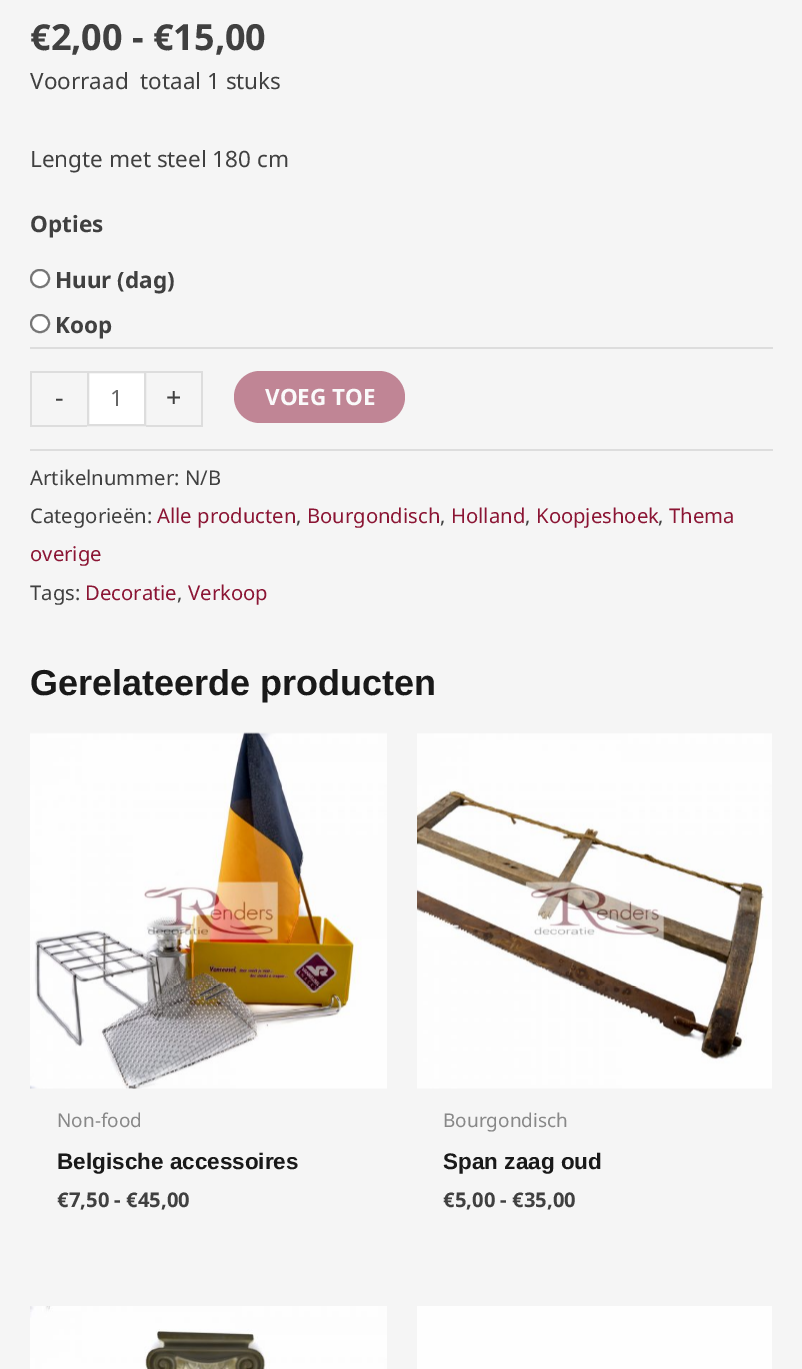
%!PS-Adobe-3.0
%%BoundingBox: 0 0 802 1369
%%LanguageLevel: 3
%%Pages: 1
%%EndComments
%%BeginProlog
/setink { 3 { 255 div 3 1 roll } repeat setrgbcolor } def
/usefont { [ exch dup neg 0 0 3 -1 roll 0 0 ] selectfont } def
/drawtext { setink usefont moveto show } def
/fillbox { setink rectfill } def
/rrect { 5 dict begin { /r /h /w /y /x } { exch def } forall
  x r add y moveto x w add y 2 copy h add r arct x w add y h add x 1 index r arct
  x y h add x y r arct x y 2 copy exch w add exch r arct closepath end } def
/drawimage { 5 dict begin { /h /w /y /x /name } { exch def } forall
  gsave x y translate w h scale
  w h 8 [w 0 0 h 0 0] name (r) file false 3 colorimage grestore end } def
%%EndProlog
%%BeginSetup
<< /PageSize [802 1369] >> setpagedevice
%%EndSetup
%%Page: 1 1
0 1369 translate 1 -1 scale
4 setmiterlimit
0 0 802 1369 245 245 245 fillbox
(€2,00 - €15,00) 30 50 /NotoSans-Bold 36 64 64 64 drawtext
(Voorraad  totaal 1 stuks) 30 89 /NotoSans-Regular 22.5 64 64 64 drawtext
(Lengte met steel 180 cm) 30 167 /NotoSans-Regular 22.5 64 64 64 drawtext
30 347 743 2 221 221 221 fillbox
(Opties) 30 232 /NotoSans-Bold 22.5 64 64 64 drawtext
255 255 255 setink
31 270 18 17 8.5 rrect gsave fill grestore
118 118 118 setink
2 setlinewidth
stroke
(Huur \(dag\)) 55 288 /NotoSans-Bold 22.5 64 64 64 drawtext
255 255 255 setink
31 315 18 17 8.5 rrect gsave fill grestore
118 118 118 setink
stroke
(Koop) 55 333 /NotoSans-Bold 22.5 64 64 64 drawtext
30 371 57 2 221 221 221 fillbox
30 425 57 2 221 221 221 fillbox
30 371 2 55 221 221 221 fillbox
(-) 55 407 /NotoSans-Regular 27 64 64 64 drawtext
255 255 255 setink
88 372 moveto 145 372 lineto 145 425 lineto 88 425 lineto closepath gsave fill grestore
221 221 221 setink
stroke
(1) 110 406 /NotoSans-Regular 22.5 102 102 102 drawtext
146 371 57 2 221 221 221 fillbox
201 371 2 55 221 221 221 fillbox
146 425 57 2 221 221 221 fillbox
(+) 166 407 /NotoSans-Regular 27 64 64 64 drawtext
192 133 149 setink
234 371 171 52 26 rrect fill
(VOEG TOE) 265 405 /NotoSans-Bold 22.5 250 250 250 drawtext
30 449 743 2 221 221 221 fillbox
(Artikelnummer: N/B) 30 485 /NotoSans-Regular 20.25 64 64 64 drawtext
(Categorieën:) 30 523 /NotoSans-Regular 20.25 64 64 64 drawtext
(Alle producten) 157 523 /NotoSans-Regular 20.25 139 21 52 drawtext
(,) 296 523 /NotoSans-Regular 20.25 64 64 64 drawtext
(Bourgondisch) 307 523 /NotoSans-Regular 20.25 139 21 52 drawtext
(,) 440 523 /NotoSans-Regular 20.25 64 64 64 drawtext
(Holland) 451 523 /NotoSans-Regular 20.25 139 21 52 drawtext
(,) 525 523 /NotoSans-Regular 20.25 64 64 64 drawtext
(Koopjeshoek) 536 523 /NotoSans-Regular 20.25 139 21 52 drawtext
(,) 658 523 /NotoSans-Regular 20.25 64 64 64 drawtext
(Thema) 669 523 /NotoSans-Regular 20.25 139 21 52 drawtext
(overige) 30 561 /NotoSans-Regular 20.25 139 21 52 drawtext
(Tags:) 30 600 /NotoSans-Regular 20.25 64 64 64 drawtext
(Decoratie) 85 600 /NotoSans-Regular 20.25 139 21 52 drawtext
(,) 177 600 /NotoSans-Regular 20.25 64 64 64 drawtext
(Verkoop) 188 600 /NotoSans-Regular 20.25 139 21 52 drawtext
(Gerelateerde producten) 30 695 /LiberationSans-Bold 36 25 25 25 drawtext
(assets/img1.rgb) 30 732 357 357 drawimage
(Non-food) 57 1127 /NotoSans-Regular 19 136 136 136 drawtext
(Belgische accessoires) 57 1169 /LiberationSans-Bold 22.5 25 25 25 drawtext
(€7,50 - €45,00) 57 1207 /NotoSans-Bold 20.25 64 64 64 drawtext
(assets/img2.rgb) 417 733 355 356 drawimage
(Bourgondisch) 443 1127 /NotoSans-Regular 19 136 136 136 drawtext
(Span zaag oud) 443 1169 /LiberationSans-Bold 22.5 25 25 25 drawtext
(€5,00 - €35,00) 443 1207 /NotoSans-Bold 20.25 64 64 64 drawtext
(assets/img3.rgb) 30 1306 357 63 drawimage
417 1306 355 63 254 254 254 fillbox
showpage
%%EOF
